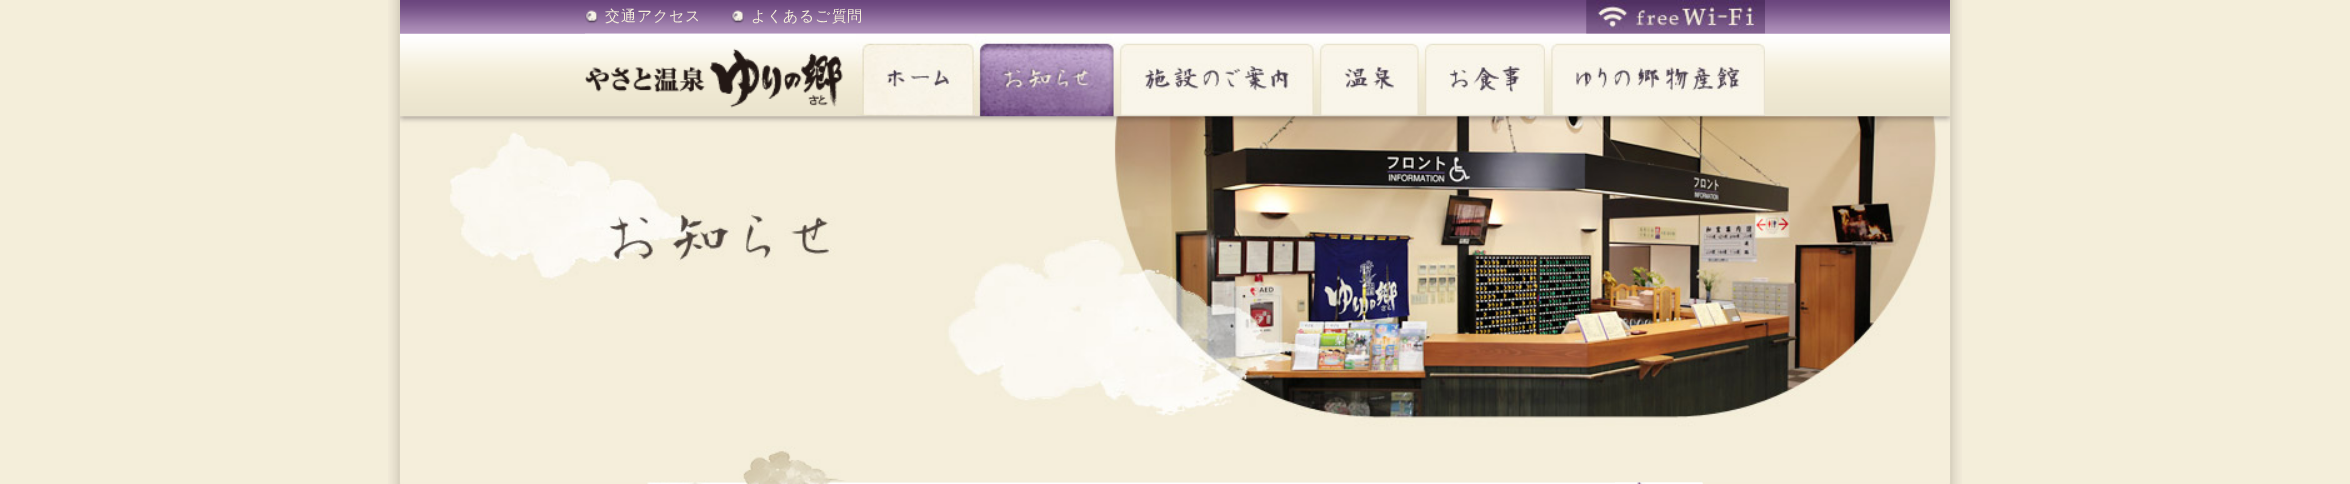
%!PS-Adobe-3.0
%%BoundingBox: 0 0 2350 484
%%LanguageLevel: 3
%%Pages: 1
%%EndComments
%%BeginProlog
/setink { 3 { 255 div 3 1 roll } repeat setrgbcolor } def
/usefont { [ exch dup neg 0 0 3 -1 roll 0 0 ] selectfont } def
/fillbox { setink rectfill } def
/drawimage { 5 dict begin { /h /w /y /x /name } { exch def } forall
  gsave x y translate w h scale
  w h 8 [w 0 0 h 0 0] name (r) file false 3 colorimage grestore end } def
%%EndProlog
%%BeginSetup
<< /PageSize [2350 484] >> setpagedevice
%%EndSetup
%%Page: 1 1
0 484 translate 1 -1 scale
4 setmiterlimit
0 0 2350 484 244 238 218 fillbox
(assets/img1.rgb) 388 0 1574 484 drawimage
(assets/img2.rgb) 400 0 1550 116 drawimage
(assets/img3.rgb) 585 10 13 14 drawimage
/WenQuanYiZenHei-Medium 15 usefont
605 21 moveto 0.75 0 (交通アクセス) ashow
(assets/img4.rgb) 731 10 13 14 drawimage
751 21 moveto 0.75 0 (よくあるご質問) ashow
(assets/img5.rgb) 1586 0 179 34 drawimage
(assets/img13.rgb) 400 116 1550 367 drawimage
(assets/img14.rgb) 585 116 1180 367 drawimage
(assets/img6.rgb) 585 33 272 84 drawimage
(assets/img7.rgb) 856 33 118 84 drawimage
(assets/img8.rgb) 973 33 141 84 drawimage
(assets/img9.rgb) 1113 33 201 84 drawimage
(assets/img10.rgb) 1313 33 106 84 drawimage
(assets/img11.rgb) 1418 33 127 84 drawimage
(assets/img12.rgb) 1545 33 220 84 drawimage
(assets/img15.rgb) 646 450 1057 34 drawimage
(assets/img16.rgb) 1615 482 88 2 drawimage
showpage
%%EOF
